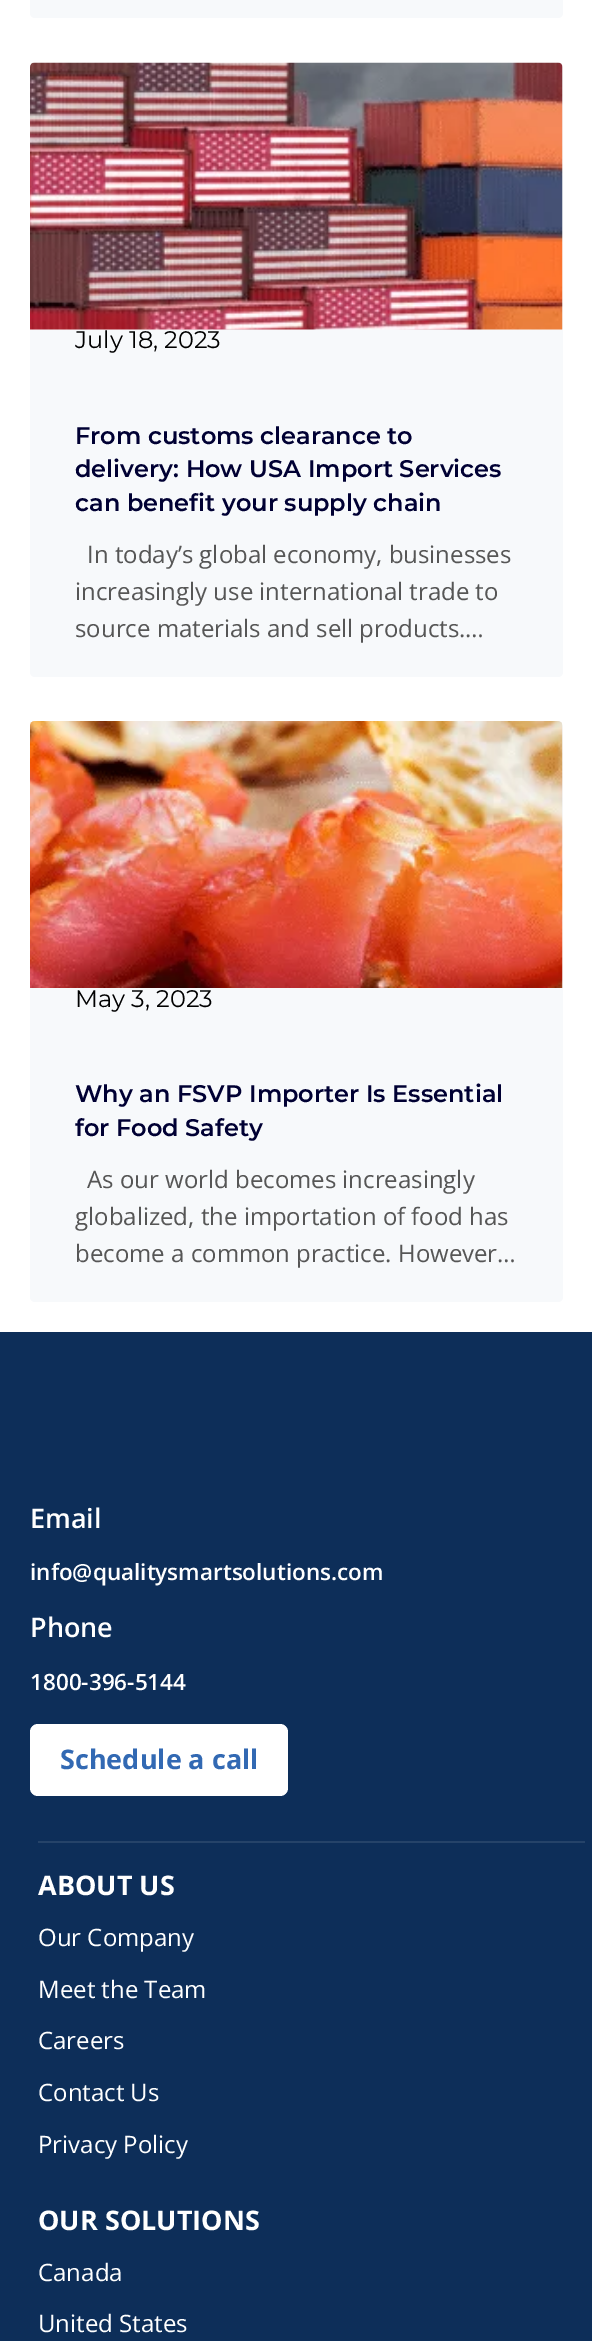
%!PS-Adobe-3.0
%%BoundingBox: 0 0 592 2341
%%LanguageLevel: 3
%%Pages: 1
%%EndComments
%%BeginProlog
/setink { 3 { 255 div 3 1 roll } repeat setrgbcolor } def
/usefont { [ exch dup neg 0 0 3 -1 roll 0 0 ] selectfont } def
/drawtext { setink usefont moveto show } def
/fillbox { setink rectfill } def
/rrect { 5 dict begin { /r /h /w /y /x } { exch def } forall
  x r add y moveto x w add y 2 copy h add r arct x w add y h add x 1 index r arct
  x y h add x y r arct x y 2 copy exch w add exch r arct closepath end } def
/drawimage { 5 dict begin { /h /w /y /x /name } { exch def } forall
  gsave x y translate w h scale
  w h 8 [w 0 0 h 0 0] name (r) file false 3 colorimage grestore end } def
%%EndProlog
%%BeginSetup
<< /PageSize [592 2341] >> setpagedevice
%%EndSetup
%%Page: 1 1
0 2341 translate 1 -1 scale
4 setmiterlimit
0 0 592 2341 255 255 255 fillbox
247 249 251 setink
30 -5 533 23 5 rrect fill
30 63 533 614 5 rrect fill
(assets/img1.rgb) 30 62 533 268 drawimage
(July 18, 2023) 75 348 /Montserrat-Regular 24 0 0 0 drawtext
(From customs clearance to) 75 444 /Montserrat-SemiBold 24 0 0 51 drawtext
(delivery: How USA Import Services) 75 477 /Montserrat-SemiBold 24 0 0 51 drawtext
(can benefit your supply chain) 75 511 /Montserrat-SemiBold 24 0 0 51 drawtext
(In today’s global economy, businesses) 87 563 /OpenSans-Regular 24 86 86 86 drawtext
(increasingly use international trade to) 75 600 /OpenSans-Regular 24 86 86 86 drawtext
(source materials and sell products.…) 75 637 /OpenSans-Regular 24 86 86 86 drawtext
247 249 251 setink
30 722 533 580 5 rrect fill
(assets/img2.rgb) 30 721 533 267 drawimage
(May 3, 2023) 75 1007 /Montserrat-Regular 24 0 0 0 drawtext
(Why an FSVP Importer Is Essential) 75 1102 /Montserrat-SemiBold 24 0 0 51 drawtext
(for Food Safety) 75 1136 /Montserrat-SemiBold 24 0 0 51 drawtext
(As our world becomes increasingly) 87 1188 /OpenSans-Regular 24 86 86 86 drawtext
(globalized, the importation of food has) 75 1225 /OpenSans-Regular 24 86 86 86 drawtext
(become a common practice. However…) 75 1262 /OpenSans-Regular 24 86 86 86 drawtext
0 1332 592 1009 13 46 89 fillbox
(Email) 30 1528 /OpenSans-SemiBold 27 255 255 255 drawtext
(info@qualitysmartsolutions.com) 30 1580 /OpenSans-SemiBold 22.5 255 255 255 drawtext
(Phone) 30 1637 /OpenSans-SemiBold 27 255 255 255 drawtext
(1800-396-5144) 30 1690 /OpenSans-SemiBold 22.5 255 255 255 drawtext
30 1724 258 72 8 rrect fill
(Schedule a call) 60 1769 /OpenSans-Bold 27 50 105 179 drawtext
38 1841 547 2 37 67 105 fillbox
(ABOUT US) 38 1895 /OpenSans-Bold 27 255 255 255 drawtext
(Our Company) 38 1946 /OpenSans-Regular 24 255 255 255 drawtext
(Meet the Team) 38 1998 /OpenSans-Regular 24 255 255 255 drawtext
(Careers) 38 2049 /OpenSans-Regular 24 255 255 255 drawtext
(Contact Us) 38 2101 /OpenSans-Regular 24 255 255 255 drawtext
(Privacy Policy) 38 2153 /OpenSans-Regular 24 255 255 255 drawtext
(OUR SOLUTIONS) 38 2230 /OpenSans-Bold 27 255 255 255 drawtext
(Canada) 38 2281 /OpenSans-Regular 24 255 255 255 drawtext
(United States) 38 2332 /OpenSans-Regular 24 255 255 255 drawtext
showpage
%%EOF
